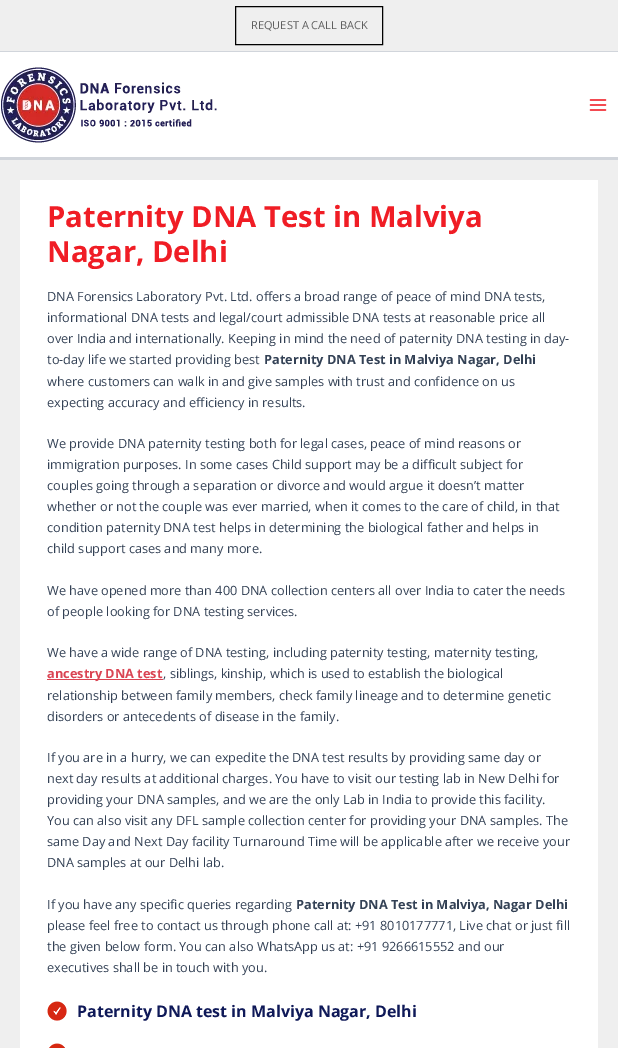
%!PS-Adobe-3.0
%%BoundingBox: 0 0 618 1048
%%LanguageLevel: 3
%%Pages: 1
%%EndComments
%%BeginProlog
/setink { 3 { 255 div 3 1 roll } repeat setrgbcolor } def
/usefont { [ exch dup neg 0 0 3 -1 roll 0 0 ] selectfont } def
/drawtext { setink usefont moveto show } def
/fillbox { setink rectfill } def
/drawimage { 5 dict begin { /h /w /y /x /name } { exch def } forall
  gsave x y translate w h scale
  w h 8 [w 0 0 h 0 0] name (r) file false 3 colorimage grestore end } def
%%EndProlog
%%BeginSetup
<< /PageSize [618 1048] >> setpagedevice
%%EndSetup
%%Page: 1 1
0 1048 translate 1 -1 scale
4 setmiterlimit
0 0 618 1048 239 239 239 fillbox
0 51 618 1 209 213 219 fillbox
0 0 0 setink
235.5 6.5 147 38 rectstroke
(REQUEST A CALL BACK) 251 29 /OpenSans-Regular 11 95 95 95 drawtext
0 52 618 105 255 255 255 fillbox
0 157 618 3 209 213 219 fillbox
(assets/img1.rgb) 1 67 216 76 drawimage
(assets/img2.rgb) 589 99 18 12 drawimage
20 180 578 868 255 255 255 fillbox
(Paternity DNA Test in Malviya) 47 227 /OpenSans-Bold 29.2 240 29 37 drawtext
(Nagar, Delhi) 47 262 /OpenSans-Bold 29.2 240 29 37 drawtext
(DNA Forensics Laboratory Pvt. Ltd. offers a broad range of peace of mind DNA tests,) 47 301 /OpenSans-Regular 12.75 51 65 85 drawtext
(informational DNA tests and legal/court admissible DNA tests at reasonable price all) 47 322 /OpenSans-Regular 12.75 51 65 85 drawtext
(over India and internationally. Keeping in mind the need of paternity DNA testing in day-) 47 343 /OpenSans-Regular 12.75 51 65 85 drawtext
(to-day life we started providing best) 47 364 /OpenSans-Regular 12.75 51 65 85 drawtext
(Paternity DNA Test in Malviya Nagar, Delhi) 264 364 /OpenSans-Bold 12.75 51 65 85 drawtext
(where customers can walk in and give samples with trust and confidence on us) 47 386 /OpenSans-Regular 12.75 51 65 85 drawtext
(expecting accuracy and efficiency in results.) 47 407 /OpenSans-Regular 12.75 51 65 85 drawtext
(We provide DNA paternity testing both for legal cases, peace of mind reasons or) 47 448 /OpenSans-Regular 12.75 51 65 85 drawtext
(immigration purposes. In some cases Child support may be a difficult subject for) 47 469 /OpenSans-Regular 12.75 51 65 85 drawtext
(couples going through a separation or divorce and would argue it doesn’t matter) 47 490 /OpenSans-Regular 12.75 51 65 85 drawtext
(whether or not the couple was ever married, when it comes to the care of child, in that) 47 511 /OpenSans-Regular 12.75 51 65 85 drawtext
(condition paternity DNA test helps in determining the biological father and helps in) 47 532 /OpenSans-Regular 12.75 51 65 85 drawtext
(child support cases and many more.) 47 553 /OpenSans-Regular 12.75 51 65 85 drawtext
(We have opened more than 400 DNA collection centers all over India to cater the needs) 47 595 /OpenSans-Regular 12.75 51 65 85 drawtext
(of people looking for DNA testing services.) 47 616 /OpenSans-Regular 12.75 51 65 85 drawtext
(We have a wide range of DNA testing, including paternity testing, maternity testing,) 47 657 /OpenSans-Regular 12.75 51 65 85 drawtext
47 679 116 1 218 68 83 fillbox
(ancestry DNA test) 47 678 /OpenSans-Bold 12.75 218 68 83 drawtext
(, siblings, kinship, which is used to establish the biological) 163 678 /OpenSans-Regular 12.75 51 65 85 drawtext
(relationship between family members, check family lineage and to determine genetic) 47 700 /OpenSans-Regular 12.75 51 65 85 drawtext
(disorders or antecedents of disease in the family.) 47 721 /OpenSans-Regular 12.75 51 65 85 drawtext
(If you are in a hurry, we can expedite the DNA test results by providing same day or) 47 762 /OpenSans-Regular 12.75 51 65 85 drawtext
(next day results at additional charges. You have to visit our testing lab in New Delhi for) 47 783 /OpenSans-Regular 12.75 51 65 85 drawtext
(providing your DNA samples, and we are the only Lab in India to provide this facility.) 47 804 /OpenSans-Regular 12.75 51 65 85 drawtext
(You can also visit any DFL sample collection center for providing your DNA samples. The) 47 825 /OpenSans-Regular 12.75 51 65 85 drawtext
(same Day and Next Day facility Turnaround Time will be applicable after we receive your) 47 846 /OpenSans-Regular 12.75 51 65 85 drawtext
(DNA samples at our Delhi lab.) 47 867 /OpenSans-Regular 12.75 51 65 85 drawtext
(If you have any specific queries regarding) 47 909 /OpenSans-Regular 12.75 51 65 85 drawtext
(Paternity DNA Test in Malviya, Nagar Delhi) 296 909 /OpenSans-Bold 12.75 51 65 85 drawtext
(please feel free to contact us through phone call at: +91 8010177771, Live chat or just fill) 47 930 /OpenSans-Regular 12.75 51 65 85 drawtext
(the given below form. You can also WhatsApp us at: +91 9266615552 and our) 47 951 /OpenSans-Regular 12.75 51 65 85 drawtext
(executives shall be in touch with you.) 47 972 /OpenSans-Regular 12.75 51 65 85 drawtext
(assets/img3.rgb) 47 1001 20 20 drawimage
(Paternity DNA test in Malviya Nagar, Delhi) 77 1017 /OpenSans-Bold 16 15 25 88 drawtext
(assets/img4.rgb) 49 1043 16 5 drawimage
showpage
%%EOF
